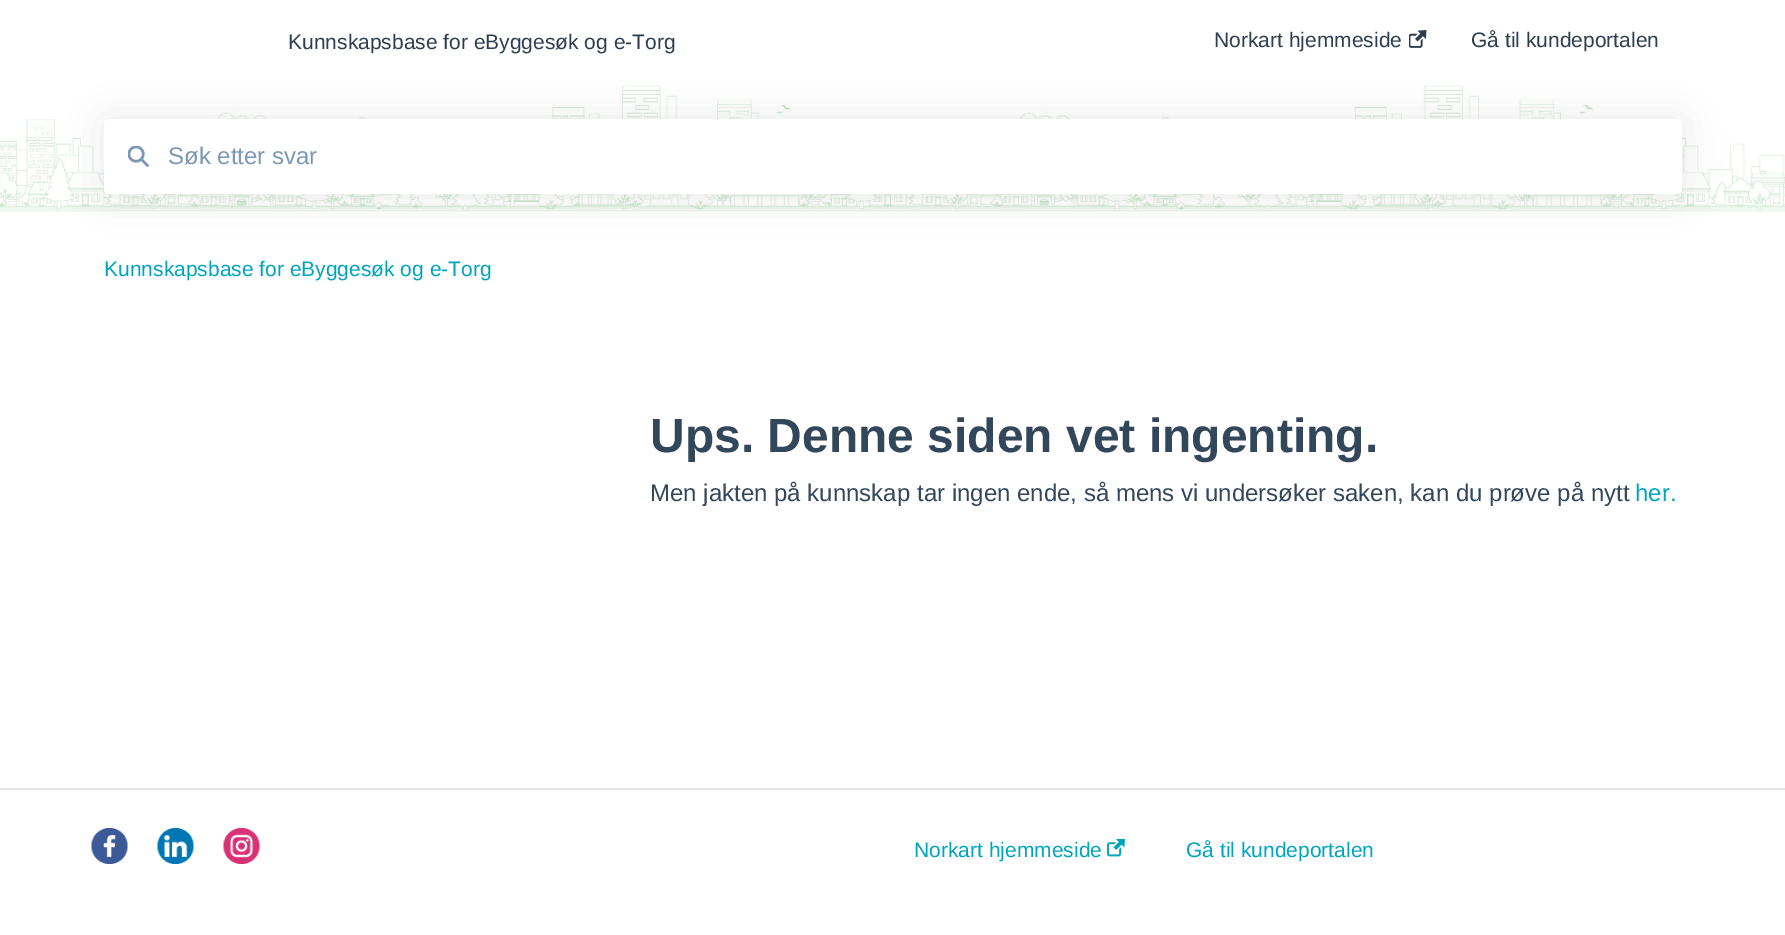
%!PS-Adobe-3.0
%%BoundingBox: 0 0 1785 935
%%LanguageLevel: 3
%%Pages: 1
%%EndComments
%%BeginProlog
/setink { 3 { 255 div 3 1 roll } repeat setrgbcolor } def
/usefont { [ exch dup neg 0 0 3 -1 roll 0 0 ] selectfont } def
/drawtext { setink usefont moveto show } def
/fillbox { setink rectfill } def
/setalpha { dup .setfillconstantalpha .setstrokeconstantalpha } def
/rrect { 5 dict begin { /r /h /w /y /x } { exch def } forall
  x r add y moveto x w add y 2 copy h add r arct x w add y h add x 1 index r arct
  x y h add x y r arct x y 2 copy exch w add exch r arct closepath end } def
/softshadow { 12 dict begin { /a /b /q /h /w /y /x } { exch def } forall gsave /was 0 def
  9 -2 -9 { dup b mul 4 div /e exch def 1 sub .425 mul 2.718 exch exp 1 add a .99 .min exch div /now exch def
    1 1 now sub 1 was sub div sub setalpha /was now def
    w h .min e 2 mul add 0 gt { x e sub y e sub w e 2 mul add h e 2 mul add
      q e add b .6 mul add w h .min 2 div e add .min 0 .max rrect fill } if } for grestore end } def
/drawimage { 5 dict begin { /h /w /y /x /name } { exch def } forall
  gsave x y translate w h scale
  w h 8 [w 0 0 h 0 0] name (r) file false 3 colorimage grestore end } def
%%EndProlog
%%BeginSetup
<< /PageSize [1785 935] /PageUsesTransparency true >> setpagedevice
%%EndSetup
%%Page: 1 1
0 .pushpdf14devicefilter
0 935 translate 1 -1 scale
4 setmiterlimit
0 0 1785 935 255 255 255 fillbox
(Kunnskapsbase for eByggesøk og e-Torg) 288 49 /LiberationSans-Regular 21 45 62 80 drawtext
(Norkart hjemmeside) 1214 47 /LiberationSans-Regular 21 45 62 80 drawtext
(assets/img1.rgb) 1409 30 18 18 drawimage
(Gå til kundeportalen) 1471 47 /LiberationSans-Regular 21 45 62 80 drawtext
(assets/img2.rgb) 0 85 1785 127 drawimage
0 0 0 setink
104 120 1578 75 5 18 0.08 softshadow
255 255 255 setink
104 119 1578 75 5 rrect fill
(assets/img3.rgb) 128 146 21 21 drawimage
(Søk etter svar) 168 164 /LiberationSans-Regular 24 124 152 182 drawtext
(Kunnskapsbase for eByggesøk og e-Torg) 104 276 /LiberationSans-Regular 21 0 164 189 drawtext
(Ups. Denne siden vet ingenting.) 650 452 /LiberationSans-Bold 48 51 71 91 drawtext
(Men jakten på kunnskap tar ingen ende, så mens vi undersøker saken, kan du prøve på nytt) 650 501 /LiberationSans-Regular 24 51 71 91 drawtext
(her.) 1635 501 /LiberationSans-Regular 24 0 164 189 drawtext
0 788 1785 2 230 230 230 fillbox
(assets/img4.rgb) 91 828 37 36 drawimage
(assets/img5.rgb) 157 828 37 36 drawimage
(assets/img6.rgb) 223 828 37 36 drawimage
(Norkart hjemmeside) 914 857 /LiberationSans-Regular 21 0 164 189 drawtext
(assets/img7.rgb) 1107 839 18 18 drawimage
(Gå til kundeportalen) 1186 857 /LiberationSans-Regular 21 0 164 189 drawtext
.poppdf14devicefilter showpage
%%EOF
